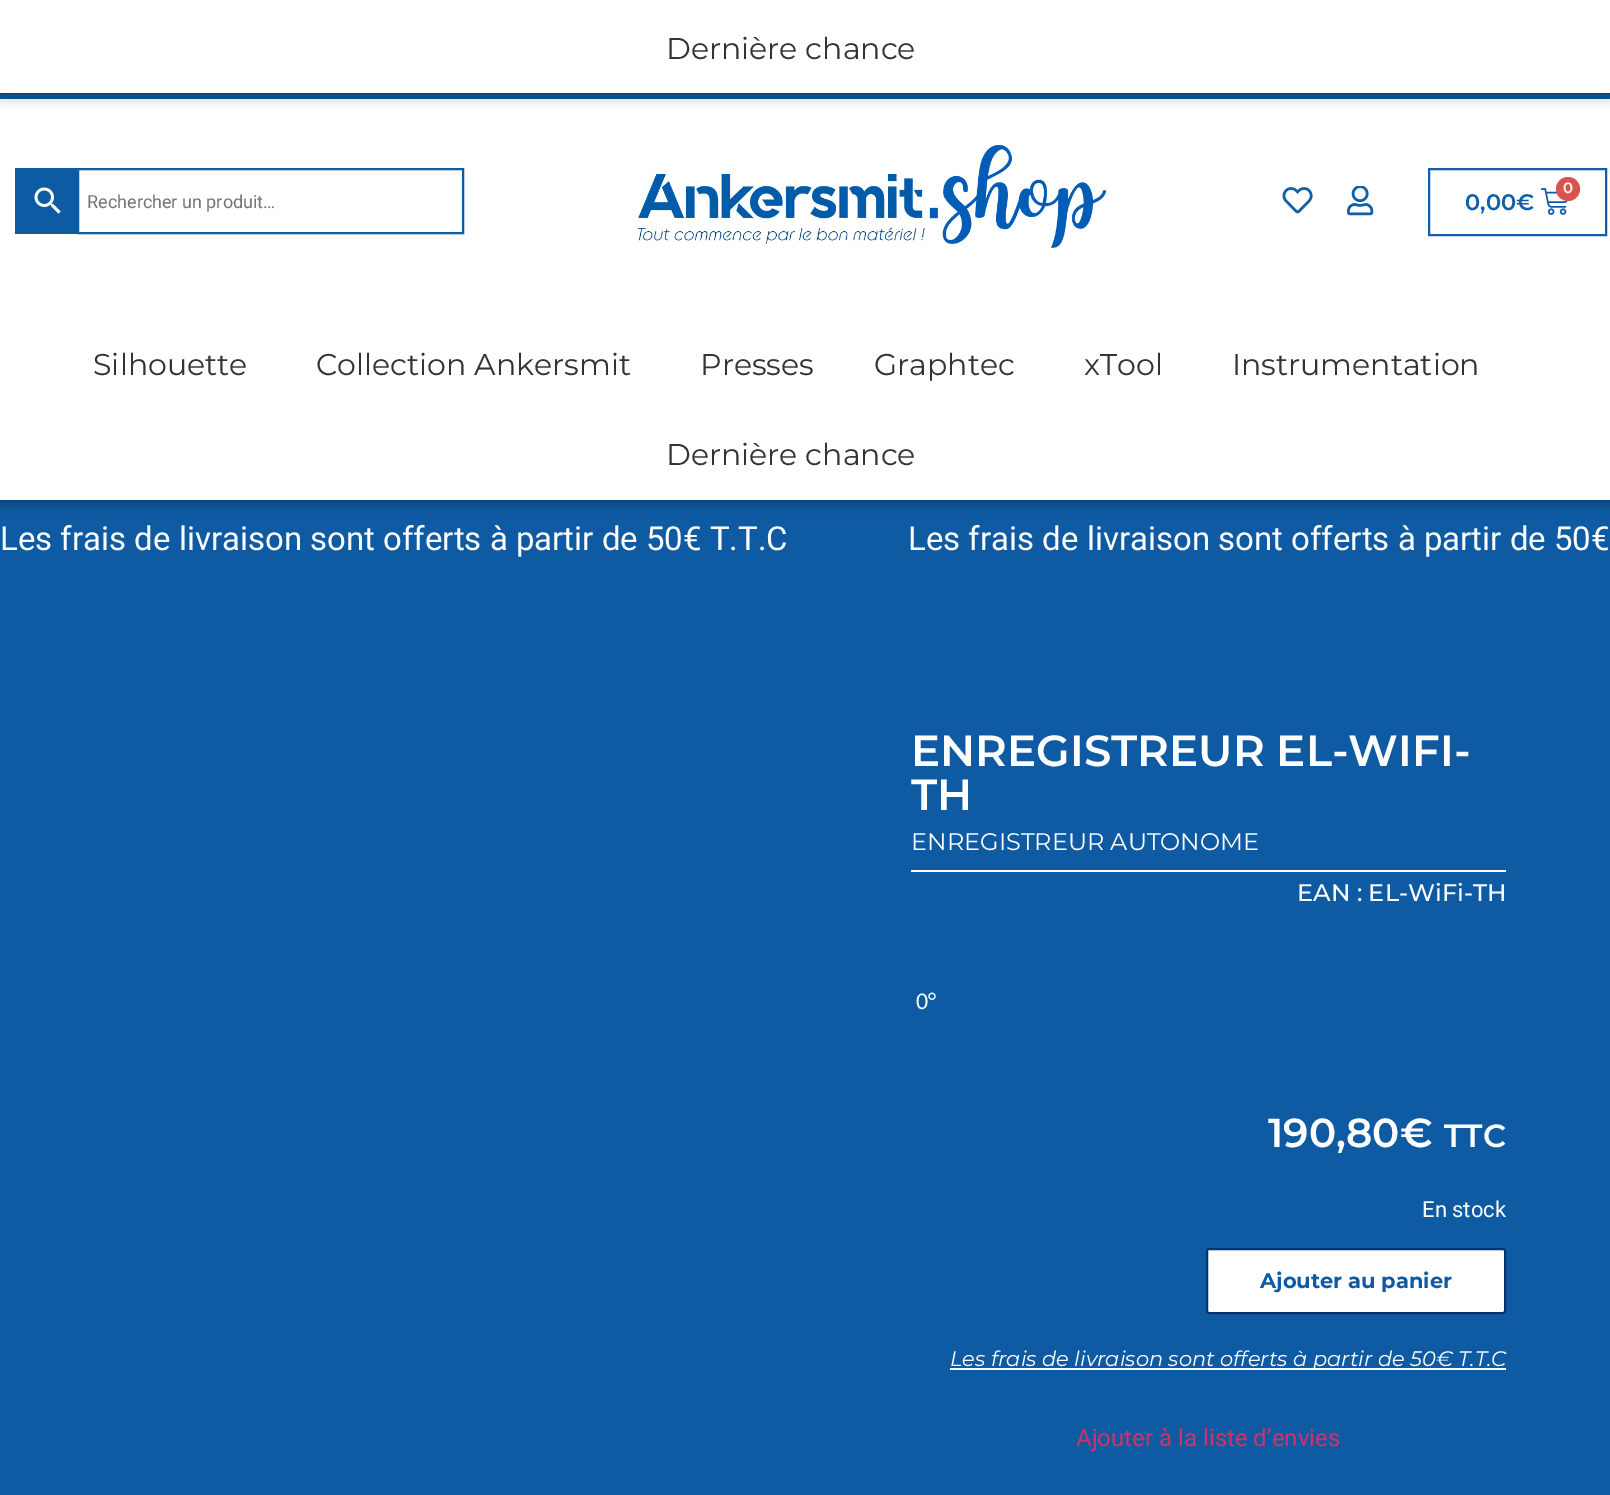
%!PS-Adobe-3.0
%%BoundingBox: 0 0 1610 1495
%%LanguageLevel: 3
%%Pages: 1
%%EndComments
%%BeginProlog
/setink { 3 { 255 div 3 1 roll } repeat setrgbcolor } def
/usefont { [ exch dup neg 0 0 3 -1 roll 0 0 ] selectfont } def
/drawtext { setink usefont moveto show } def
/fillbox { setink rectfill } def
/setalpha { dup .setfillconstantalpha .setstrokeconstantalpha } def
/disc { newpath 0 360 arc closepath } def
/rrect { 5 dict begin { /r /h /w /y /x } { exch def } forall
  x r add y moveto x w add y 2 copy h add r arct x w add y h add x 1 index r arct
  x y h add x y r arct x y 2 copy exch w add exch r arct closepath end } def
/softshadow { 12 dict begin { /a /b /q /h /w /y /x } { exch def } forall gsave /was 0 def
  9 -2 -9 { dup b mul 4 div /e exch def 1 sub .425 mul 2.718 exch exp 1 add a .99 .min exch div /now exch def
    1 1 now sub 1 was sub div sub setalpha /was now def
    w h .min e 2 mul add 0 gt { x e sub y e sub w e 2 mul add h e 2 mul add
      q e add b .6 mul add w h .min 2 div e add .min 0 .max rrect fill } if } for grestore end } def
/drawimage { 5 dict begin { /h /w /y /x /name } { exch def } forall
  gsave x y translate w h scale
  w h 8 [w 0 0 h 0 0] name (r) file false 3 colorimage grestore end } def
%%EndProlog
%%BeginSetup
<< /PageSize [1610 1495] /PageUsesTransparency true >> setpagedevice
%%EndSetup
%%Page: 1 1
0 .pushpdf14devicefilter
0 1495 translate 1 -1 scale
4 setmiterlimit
0 0 1610 1495 255 255 255 fillbox
0 500 1610 995 15 91 163 fillbox
gsave
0 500 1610 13 rectclip
0 0 0 setink
0 0 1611 500 0 7.5 0.5 softshadow
grestore
gsave 0 93 moveto 1610 93 lineto 1610 99 lineto 0 99 lineto closepath clip newpath
<< /ShadingType 2 /ColorSpace /DeviceRGB /Coords [806 0 806 99] /Extend [true true] /Function << /FunctionType 3 /Domain [0 1] /Functions [<< /FunctionType 2 /Domain [0 1] /C0 [0.169 0.49 0.773] /C1 [0.169 0.49 0.773] /N 1 >> << /FunctionType 2 /Domain [0 1] /C0 [0.169 0.49 0.773] /C1 [0.059 0.357 0.639] /N 1 >>] /Bounds [0.28] /Encode [0 1 0 1] >> >> shfill grestore
0 0 0 setink
0 -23 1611 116 0 7.5 0.5 softshadow
0 0 1610 93 255 255 255 fillbox
(Dernière chance) 666 59 /Montserrat-Regular 30 51 51 51 drawtext
15 168 62 66 13 92 163 fillbox
(assets/img1.rgb) 34 187 27 27 drawimage
2 setlinewidth
78 169 385 64 rectstroke
(Rechercher un produit…) 87 208 /Roboto-Regular 18 117 117 117 drawtext
(assets/img2.rgb) 637 145 470 103 drawimage
(assets/img3.rgb) 1282 187 31 27 drawimage
(assets/img4.rgb) 1347 186 27 30 drawimage
16 95 170 setink
1429 169 177 66 rectstroke
(assets/img5.rgb) 1540 188 28 27 drawimage
217 83 79 setink
1568 189 12 disc fill
(0) 1563 193 /Montserrat-SemiBold 15 255 255 255 drawtext
(0,00€) 1465 210 /Montserrat-SemiBold 22.5 16 95 170 drawtext
0 499 1610 1 255 255 255 fillbox
(Silhouette) 93 375 /Montserrat-Regular 30 51 51 51 drawtext
(Collection Ankersmit) 316 375 /Montserrat-Regular 30 51 51 51 drawtext
(Presses) 700 375 /Montserrat-Regular 30 51 51 51 drawtext
(Graphtec) 874 375 /Montserrat-Regular 30 51 51 51 drawtext
(xTool) 1084 375 /Montserrat-Regular 30 51 51 51 drawtext
(Instrumentation) 1232 375 /Montserrat-Regular 30 51 51 51 drawtext
(Dernière chance) 666 465 /Montserrat-Regular 30 51 51 51 drawtext
(Les frais de livraison sont offerts à partir de 50€ T.T.C) 0 550 /Roboto-Regular 33 255 255 255 drawtext
(Les frais de livraison sont offerts à partir de 50€) 908 550 /Roboto-Regular 33 255 255 255 drawtext
(ENREGISTREUR EL-WIFI-) 911 766 /Montserrat-SemiBold 43.5 255 255 255 drawtext
(TH) 911 810 /Montserrat-SemiBold 43.5 255 255 255 drawtext
911 870 595 2 255 255 255 fillbox
(ENREGISTREUR AUTONOME) 911 850 /Montserrat-Regular 24 255 255 255 drawtext
(EAN : EL-WiFi-TH) 1297 901 /Montserrat-Medium 24 255 255 255 drawtext
(0°) 916 1009 /Carlito-Regular 24 255 255 255 drawtext
(190,80€) 1268 1147 /Montserrat-SemiBold 40.5 255 255 255 drawtext
(TTC) 1444 1147 /Montserrat-SemiBold 32 255 255 255 drawtext
(En stock) 1422 1217 /Roboto-Regular 22 255 255 255 drawtext
1207 1249 298 64 2 rrect gsave fill grestore
4 52 114 setink
stroke
(Ajouter au panier) 1260 1288 /Montserrat-Bold 21 15 91 163 drawtext
950 1368 556 2 255 255 255 fillbox
(Les frais de livraison sont offerts à partir de 50€ T.T.C) 950 1366 /Montserrat-Italic 21 255 255 255 drawtext
(Ajouter à la liste d’envies) 1076 1446 /Roboto-Regular 24 204 51 102 drawtext
.poppdf14devicefilter showpage
%%EOF
